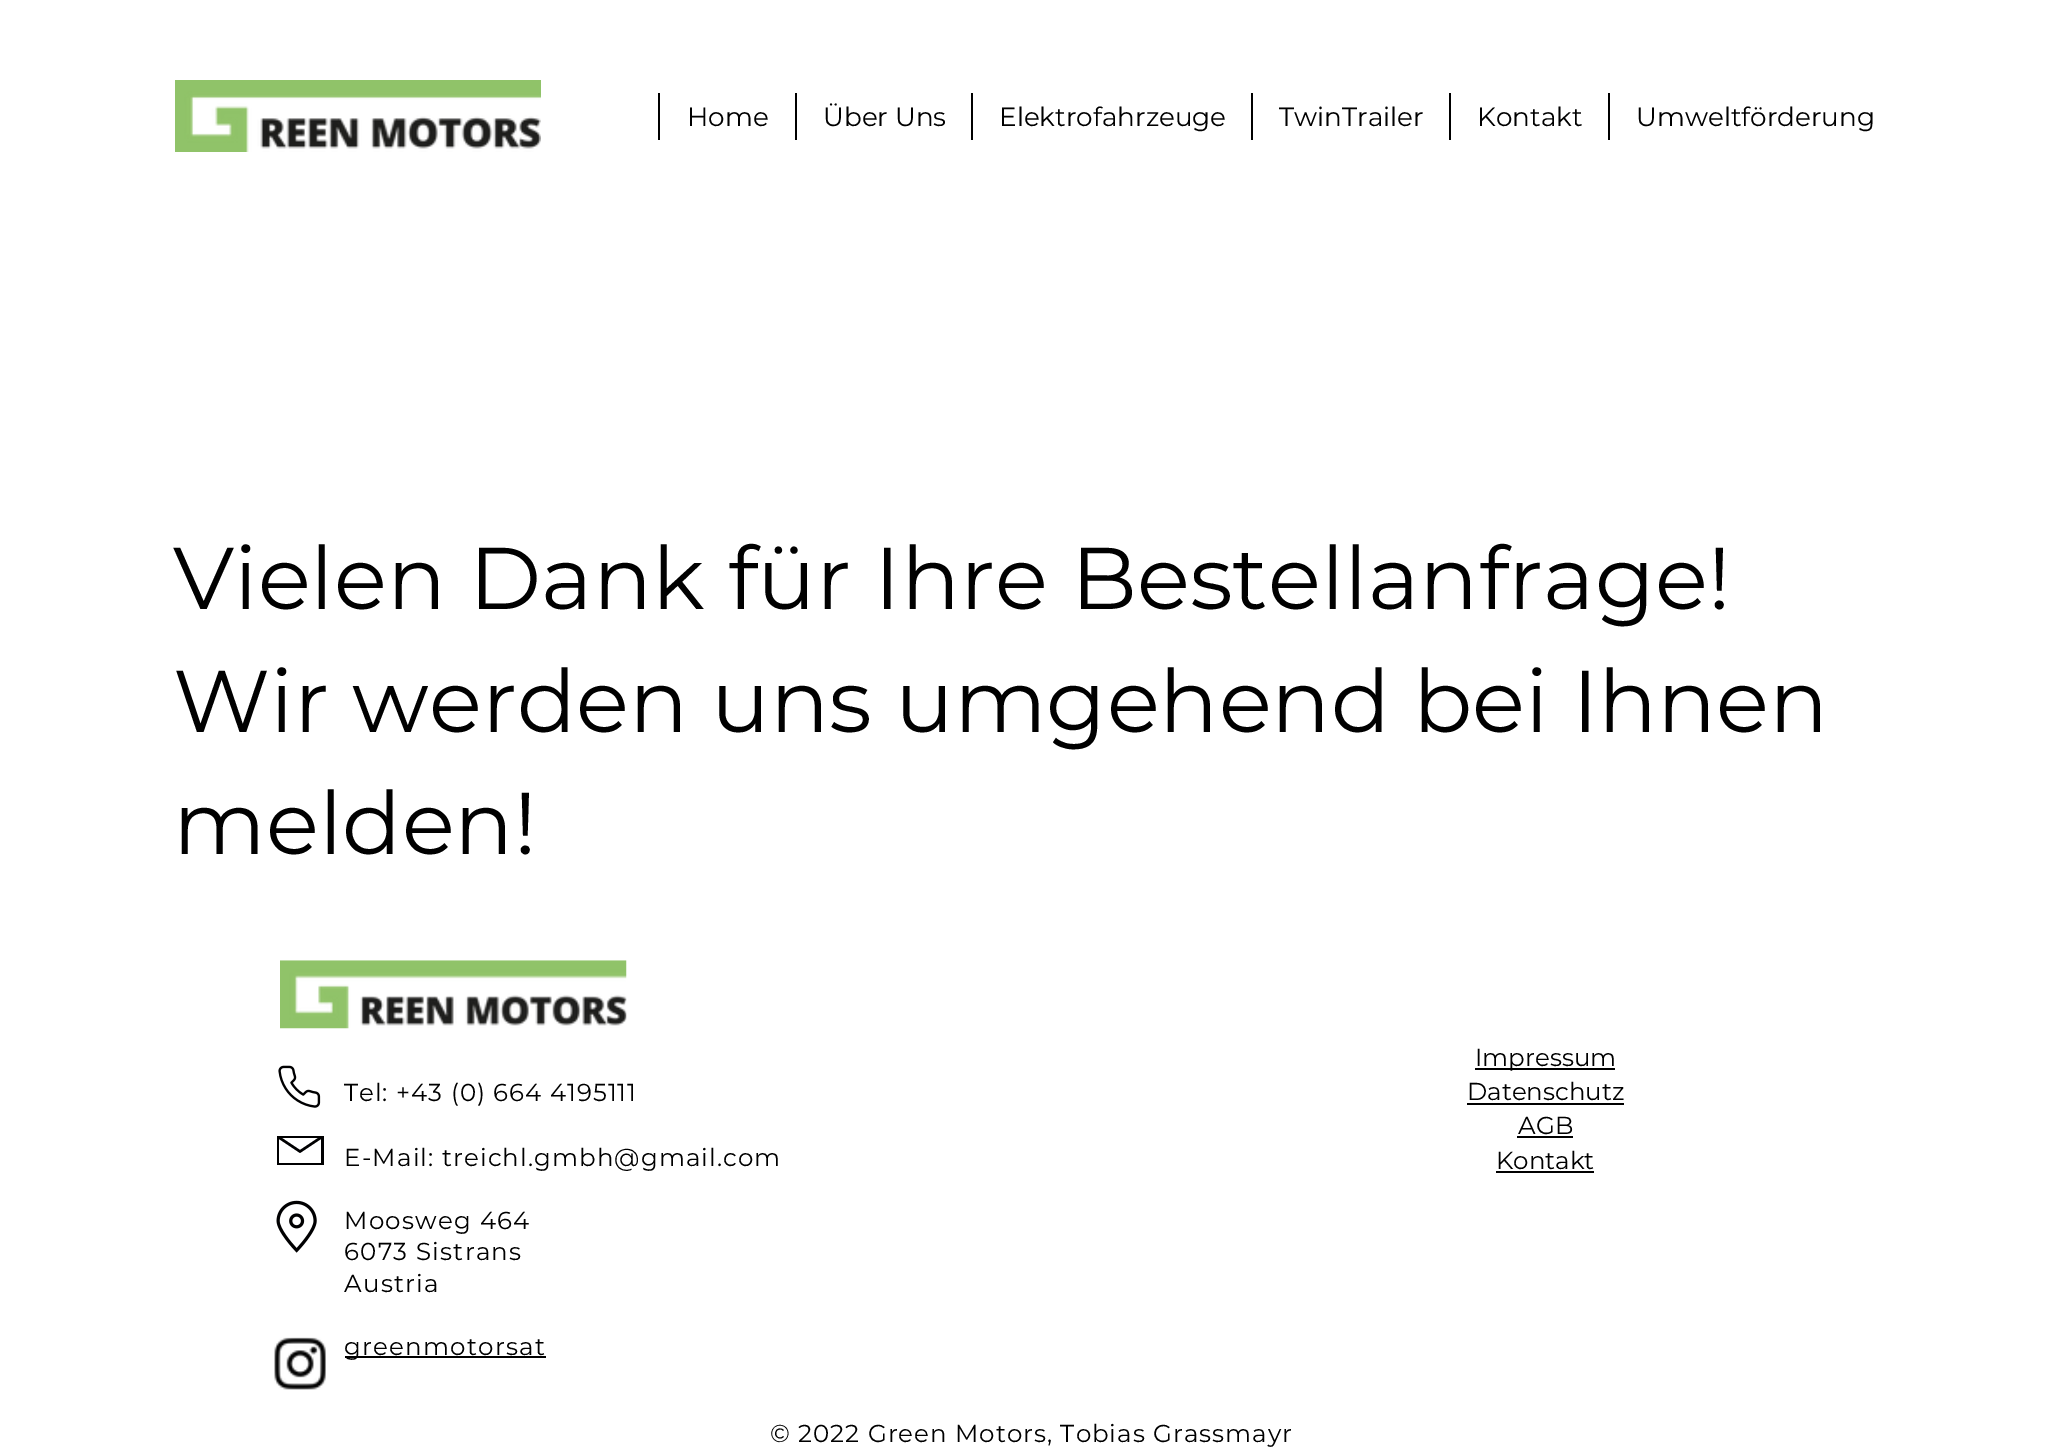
%!PS-Adobe-3.0
%%BoundingBox: 0 0 2060 1456
%%LanguageLevel: 3
%%Pages: 1
%%EndComments
%%BeginProlog
/setink { 3 { 255 div 3 1 roll } repeat setrgbcolor } def
/usefont { [ exch dup neg 0 0 3 -1 roll 0 0 ] selectfont } def
/drawtext { setink usefont moveto show } def
/fillbox { setink rectfill } def
/drawimage { 5 dict begin { /h /w /y /x /name } { exch def } forall
  gsave x y translate w h scale
  w h 8 [w 0 0 h 0 0] name (r) file false 3 colorimage grestore end } def
%%EndProlog
%%BeginSetup
<< /PageSize [2060 1456] >> setpagedevice
%%EndSetup
%%Page: 1 1
0 1456 translate 1 -1 scale
4 setmiterlimit
0 0 2060 1456 255 255 255 fillbox
(assets/img1.rgb) 175 80 366 72 drawimage
658 93 2 47 0 0 0 fillbox
(Home) 687 126 /Montserrat-Regular 26.25 0 0 0 drawtext
795 93 2 47 0 0 0 fillbox
(Über Uns) 823 126 /Montserrat-Regular 26.25 0 0 0 drawtext
971 93 2 47 0 0 0 fillbox
(Elektrofahrzeuge) 999 126 /Montserrat-Regular 26.25 0 0 0 drawtext
1251 93 2 47 0 0 0 fillbox
(TwinTrailer) 1279 126 /Montserrat-Regular 26.25 0 0 0 drawtext
1449 93 2 47 0 0 0 fillbox
(Kontakt) 1477 126 /Montserrat-Regular 26.25 0 0 0 drawtext
1608 93 2 47 0 0 0 fillbox
(Umweltförderung) 1636 126 /Montserrat-Regular 26.25 0 0 0 drawtext
(Vielen Dank für Ihre Bestellanfrage!) 173 609 /Montserrat-Regular 87.5 0 0 0 drawtext
(Wir werden uns umgehend bei Ihnen) 173 732 /Montserrat-Regular 87.5 0 0 0 drawtext
(melden!) 173 854 /Montserrat-Regular 87.5 0 0 0 drawtext
(assets/img2.rgb) 274 1337 52 53 drawimage
(assets/img3.rgb) 280 960 347 69 drawimage
(assets/img4.rgb) 278 1065 43 43 drawimage
/Montserrat-Regular 24.5 usefont
344 1101 moveto 1 0 (Tel: +43 \(0\) 664 4195111) ashow
344 1166 moveto 1.25 0 (E-Mail: t) ashow
453 1166 moveto 1.1 0 (reichl.gmbh@gmail.com) ashow
344 1229 moveto 1.25 0 (Moosweg 464) ashow
344 1260 moveto 1.25 0 (6073 Sistrans) ashow
344 1292 moveto 1.25 0 (Austria) ashow
345 1356 201 2 0 0 0 fillbox
344 1355 moveto 1.25 0 (greenmotorsat) ashow
0 0 1 setink
277 1136 moveto 277 1165 lineto 324 1165 lineto 324 1136 lineto closepath 318 1138 moveto 300 1150 lineto 282 1138 lineto closepath 279 1163 moveto 279 1139 lineto 300 1153 lineto 321 1139 lineto 321 1163 lineto closepath fill
(assets/img5.rgb) 276 1200 41 53 drawimage
1475 1068 140 2 0 0 0 fillbox
(Impressum) 1475 1066 /Montserrat-Regular 24.5 0 0 0 drawtext
(Datenschutz) 1467 1100 /Montserrat-Regular 24.5 0 0 0 drawtext
1467 1103 157 2 0 0 0 fillbox
(AGB) 1518 1134 /Montserrat-Regular 24.5 0 0 0 drawtext
1517 1136 56 2 0 0 0 fillbox
(Kontakt) 1496 1169 /Montserrat-Regular 24.5 0 0 0 drawtext
1496 1171 98 2 0 0 0 fillbox
770 1442 moveto 1 0 (© 2022 Green Motors, Tobias Grassmayr) ashow
showpage
%%EOF
